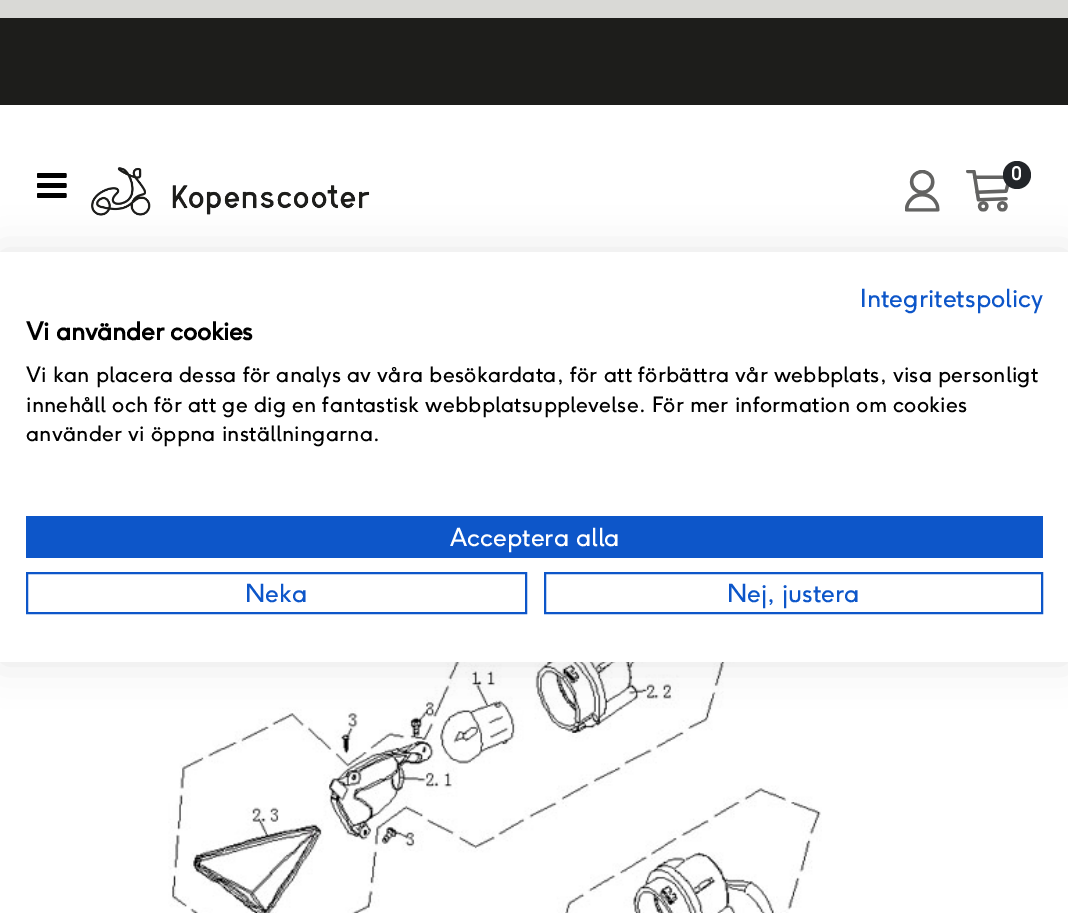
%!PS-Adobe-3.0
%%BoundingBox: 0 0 1068 913
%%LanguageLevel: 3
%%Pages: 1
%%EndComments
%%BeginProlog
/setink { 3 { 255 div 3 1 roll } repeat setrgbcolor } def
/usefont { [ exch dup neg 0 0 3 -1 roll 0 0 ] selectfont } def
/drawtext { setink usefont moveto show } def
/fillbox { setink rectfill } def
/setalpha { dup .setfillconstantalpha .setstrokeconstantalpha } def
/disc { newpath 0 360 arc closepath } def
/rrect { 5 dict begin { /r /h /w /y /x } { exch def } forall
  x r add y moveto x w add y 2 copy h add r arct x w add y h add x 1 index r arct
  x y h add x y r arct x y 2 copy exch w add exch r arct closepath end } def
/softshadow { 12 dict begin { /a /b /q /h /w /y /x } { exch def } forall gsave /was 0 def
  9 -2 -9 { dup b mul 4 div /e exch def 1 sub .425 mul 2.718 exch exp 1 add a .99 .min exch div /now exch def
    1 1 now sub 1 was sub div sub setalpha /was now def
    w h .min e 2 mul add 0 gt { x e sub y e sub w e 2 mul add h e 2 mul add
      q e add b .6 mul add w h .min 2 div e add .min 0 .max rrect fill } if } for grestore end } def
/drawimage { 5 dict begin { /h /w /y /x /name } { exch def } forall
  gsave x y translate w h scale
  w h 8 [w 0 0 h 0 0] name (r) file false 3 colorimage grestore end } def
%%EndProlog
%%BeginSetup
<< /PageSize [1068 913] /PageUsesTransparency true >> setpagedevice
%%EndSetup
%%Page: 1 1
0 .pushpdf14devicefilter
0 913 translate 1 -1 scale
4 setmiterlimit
0 0 1068 913 255 255 255 fillbox
0 0 1068 18 217 217 214 fillbox
0 18 1068 87 29 29 27 fillbox
(assets/img1.rgb) 37 173 30 25 drawimage
(assets/img2.rgb) 91 167 279 49 drawimage
(assets/img3.rgb) 905 170 35 42 drawimage
(assets/img4.rgb) 966 170 44 42 drawimage
34 37 41 setink
1017 175 14 disc fill
(0) 1011 180 /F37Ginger-Bold 18 255 255 255 drawtext
(assets/img5.rgb) 168 662 654 251 drawimage
0 0 0 setink
0 252 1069 410 0 21 0.1 softshadow
0 252 1068 410 255 255 255 fillbox
(Integritetspolicy) 860 307 /F37Ginger-Regular 24.5 13 86 201 drawtext
/F37Ginger-Bold 24.5 usefont
0 0 0 setink
26 340 moveto -0.25 0 (Vi använder cookies) ashow
/F37Ginger-Regular 21 usefont
26 382 moveto 0.25 0 (Vi kan placera dessa för analys av våra besökardata, för att förbättra vår webbplats, visa personligt) ashow
26 412 moveto 0.25 0 (innehåll och för att ge dig en fantastisk webbplatsupplevelse. För mer information om cookies) ashow
26 441 moveto 0.25 0 (använder vi öppna inställningarna.) ashow
26 516 1017 42 13 86 201 fillbox
(Acceptera alla) 450 546 /F37Ginger-Regular 24.5 255 255 255 drawtext
13 86 201 setink
2 setlinewidth
27 573 499 40 rectstroke
(Neka) 245 602 /F37Ginger-Regular 24.5 13 86 201 drawtext
545 573 497 40 rectstroke
(Nej, justera) 727 602 /F37Ginger-Regular 24.5 13 86 201 drawtext
.poppdf14devicefilter showpage
%%EOF
